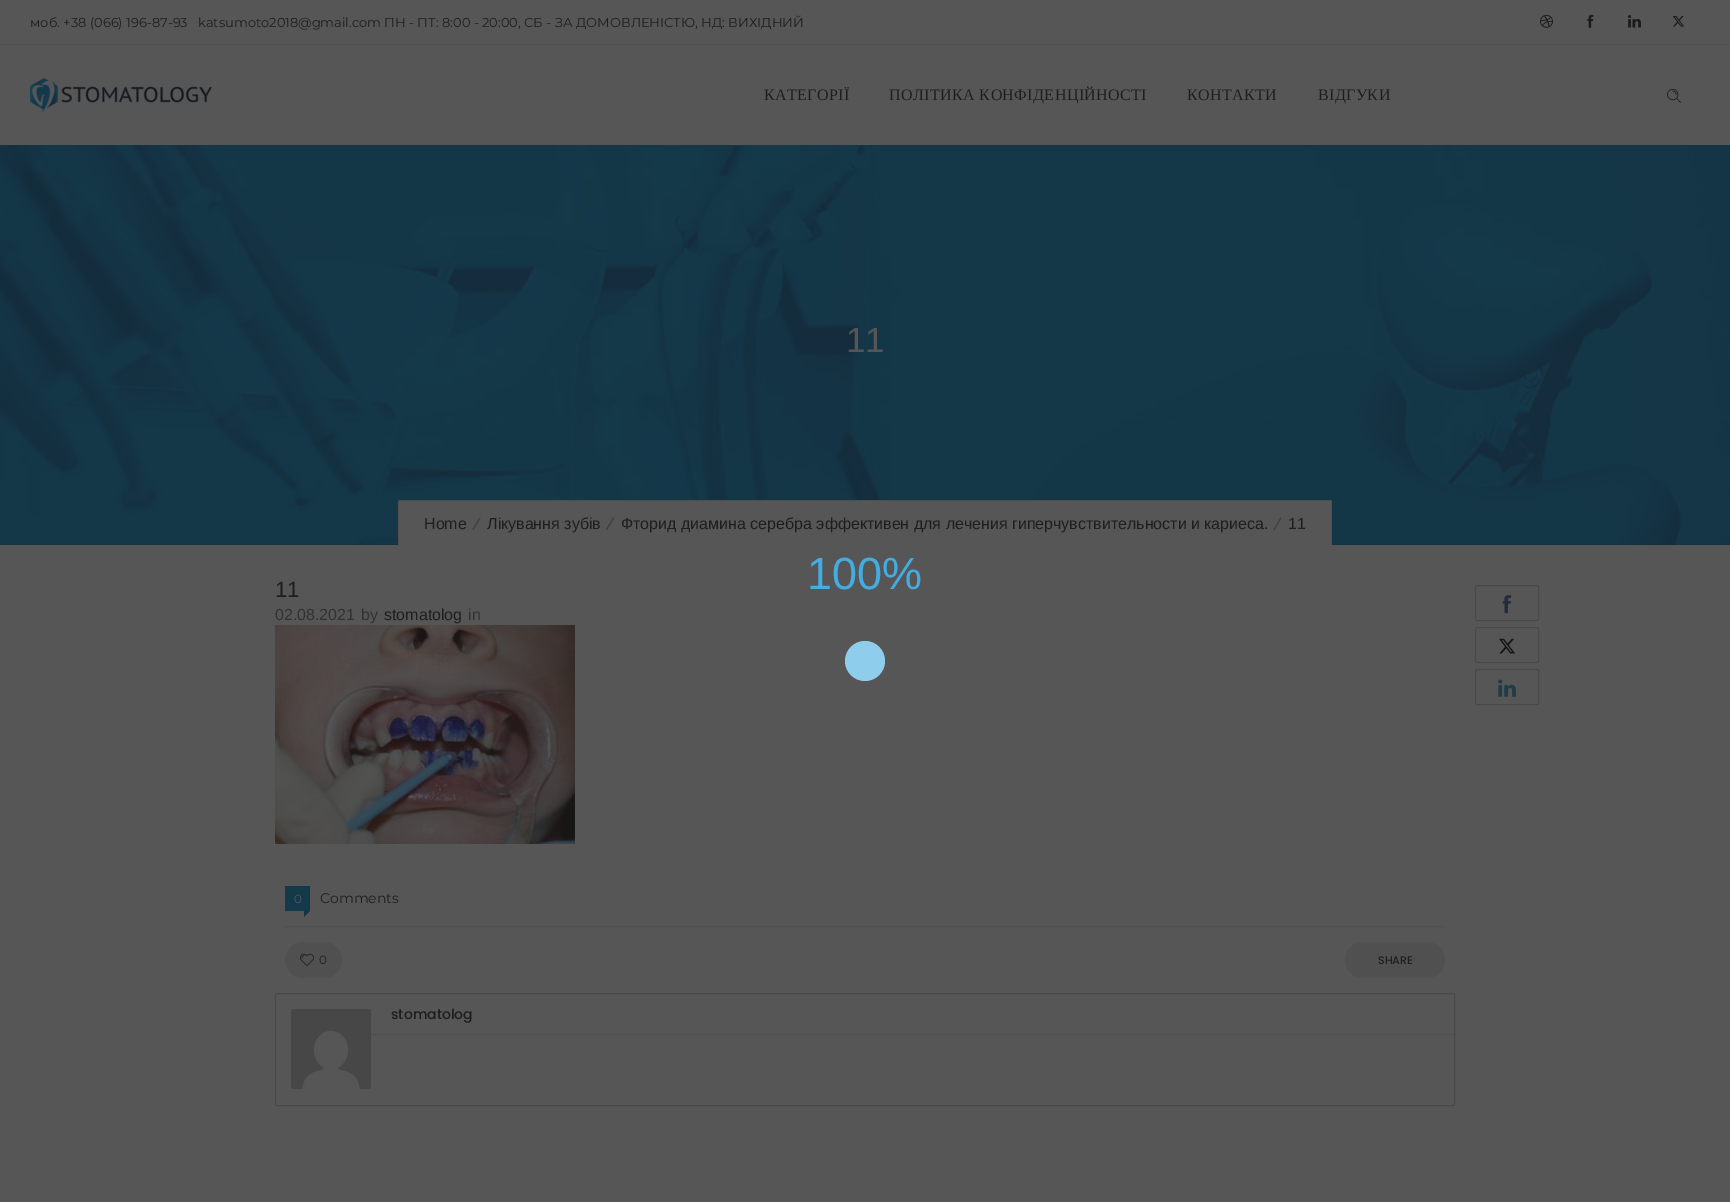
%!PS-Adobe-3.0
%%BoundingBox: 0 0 1730 1202
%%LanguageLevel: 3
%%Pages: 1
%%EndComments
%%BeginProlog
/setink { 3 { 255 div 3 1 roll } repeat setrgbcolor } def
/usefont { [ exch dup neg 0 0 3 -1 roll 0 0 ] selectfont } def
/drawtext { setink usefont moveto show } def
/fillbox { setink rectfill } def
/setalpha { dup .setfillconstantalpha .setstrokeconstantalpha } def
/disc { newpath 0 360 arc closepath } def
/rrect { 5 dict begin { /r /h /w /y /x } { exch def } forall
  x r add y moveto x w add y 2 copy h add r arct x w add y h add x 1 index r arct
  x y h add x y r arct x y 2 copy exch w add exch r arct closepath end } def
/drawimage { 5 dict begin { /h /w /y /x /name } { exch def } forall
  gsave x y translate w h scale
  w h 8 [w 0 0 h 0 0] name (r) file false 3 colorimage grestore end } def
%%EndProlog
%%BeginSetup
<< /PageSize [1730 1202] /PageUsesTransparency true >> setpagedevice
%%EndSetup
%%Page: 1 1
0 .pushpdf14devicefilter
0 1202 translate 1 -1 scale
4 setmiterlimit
0 0 1730 1202 86 86 86 fillbox
0 44 1730 1 81 81 81 fillbox
(моб. +38 \(066\) 196-87-93) 30 27 /Montserrat-Regular 13 30 30 31 drawtext
(katsumoto2018@gmail.com ПН - ПТ: 8:00 - 20:00, СБ - ЗА ДОМОВЛЕНІСТЮ, НД: ВИХІДНИЙ) 198 27 /Montserrat-Regular 13 30 30 31 drawtext
(assets/img1.rgb) 1540 14 13 14 drawimage
(assets/img2.rgb) 1587 14 7 14 drawimage
(assets/img3.rgb) 1628 15 13 13 drawimage
(assets/img4.rgb) 1672 16 13 11 drawimage
(assets/img5.rgb) 30 78 183 34 drawimage
/LiberationSerif-Regular 16 usefont
764 100 moveto 0.4 0 (КАТЕГОРІЇ) ashow
889 100 moveto 0.4 0 (ПОЛІТИКА КОНФІДЕНЦІЙНОСТІ) ashow
1187 100 moveto 0.4 0 (КОНТАКТИ) ashow
1318 100 moveto 0.4 0 (ВІДГУКИ) ashow
(assets/img6.rgb) 1667 88 14 15 drawimage
(assets/img7.rgb) 0 145 1730 400 drawimage
0.1 setalpha
0 544 1730 1 27 27 27 fillbox
1 setalpha
(11) 846 352 /LiberationSans-Regular 35 86 86 86 drawtext
400 500 moveto 1330 500 lineto 1331 500 1332 501 1332 502 curveto 1332 545 lineto 398 545 lineto 398 502 lineto 398 501 399 500 400 500 curveto closepath fill
0.1 setalpha
399 500 932 1 27 27 27 fillbox
1331 501 1 44 27 27 27 fillbox
398 501 1 44 27 27 27 fillbox
1 setalpha
(Home) 424 529 /LiberationSans-Regular 16 30 30 31 drawtext
64 64 64 setink
479.5 517.5 moveto 480.5 518 lineto 473.5 530 lineto 472.5 529.5 lineto closepath fill
(Лікування зубів) 487 529 /LiberationSans-Regular 16 30 30 31 drawtext
64 64 64 setink
613 517.5 moveto 614 518 lineto 607 530 lineto 606 529.5 lineto closepath fill
(Фторид диамина серебра эффективен для лечения гиперчувствительности и кариеса.) 621 529 /LiberationSans-Regular 16 30 30 31 drawtext
64 64 64 setink
1280.5 517.5 moveto 1281.5 518 lineto 1274.5 530 lineto 1273.5 529.5 lineto closepath fill
(11) 1288 529 /LiberationSans-Regular 16 30 30 31 drawtext
(11) 275 597 /LiberationSans-Regular 22 30 30 31 drawtext
(02.08.2021) 275 620 /LiberationSans-Regular 16 50 50 50 drawtext
(by) 361 620 /LiberationSans-Regular 16 50 50 50 drawtext
(stomatolog) 384 620 /LiberationSans-Regular 16 30 30 31 drawtext
(in) 468 620 /LiberationSans-Regular 16 50 50 50 drawtext
(assets/img8.rgb) 275 625 300 219 drawimage
73 73 73 setink
[1 1] 0 setdash
285 926.5 moveto 1445 926.5 lineto stroke
285 886 25 25 20 57 75 fillbox
(0) 294 903 /Montserrat-Regular 12 86 86 86 drawtext
20 50 69 setink
304 911 moveto 310 911 lineto 307 914 lineto closepath fill
304 917 moveto 304 911 lineto 307 914 lineto closepath fill
(Comments) 320 903 /Montserrat-Regular 14 30 30 31 drawtext
80 80 80 setink
285 942 57 36 18 rrect fill
(assets/img9.rgb) 300 953 14 13 drawimage
(0) 319 964 /Montserrat-Regular 12 30 30 31 drawtext
80 80 80 setink
1345 942 100 36 18 rrect fill
(SHARE) 1378 964 /Poppins-Medium 11 30 30 31 drawtext
73 73 73 setink
[] 0 setdash
1475.5 585.5 63 35 1.5 rrect stroke
(assets/img10.rgb) 1502 595 10 19 drawimage
1475.5 627.5 63 35 1.5 rrect stroke
(assets/img11.rgb) 1499 638 16 16 drawimage
1475.5 669.5 63 35 1.5 rrect stroke
(assets/img12.rgb) 1498 679 18 18 drawimage
275.5 993.5 1179 112 1.5 rrect stroke
(assets/img13.rgb) 291 1009 80 80 drawimage
[1 1] 0 setdash
371 1034.5 moveto 1454 1034.5 lineto stroke
(stomatolog) 391 1019 /Poppins-Medium 14 30 30 31 drawtext
(100%) 807 589 /LiberationSans-Regular 45 67 172 224 drawtext
142 205 236 setink
865 661 20 disc fill
.poppdf14devicefilter showpage
%%EOF
